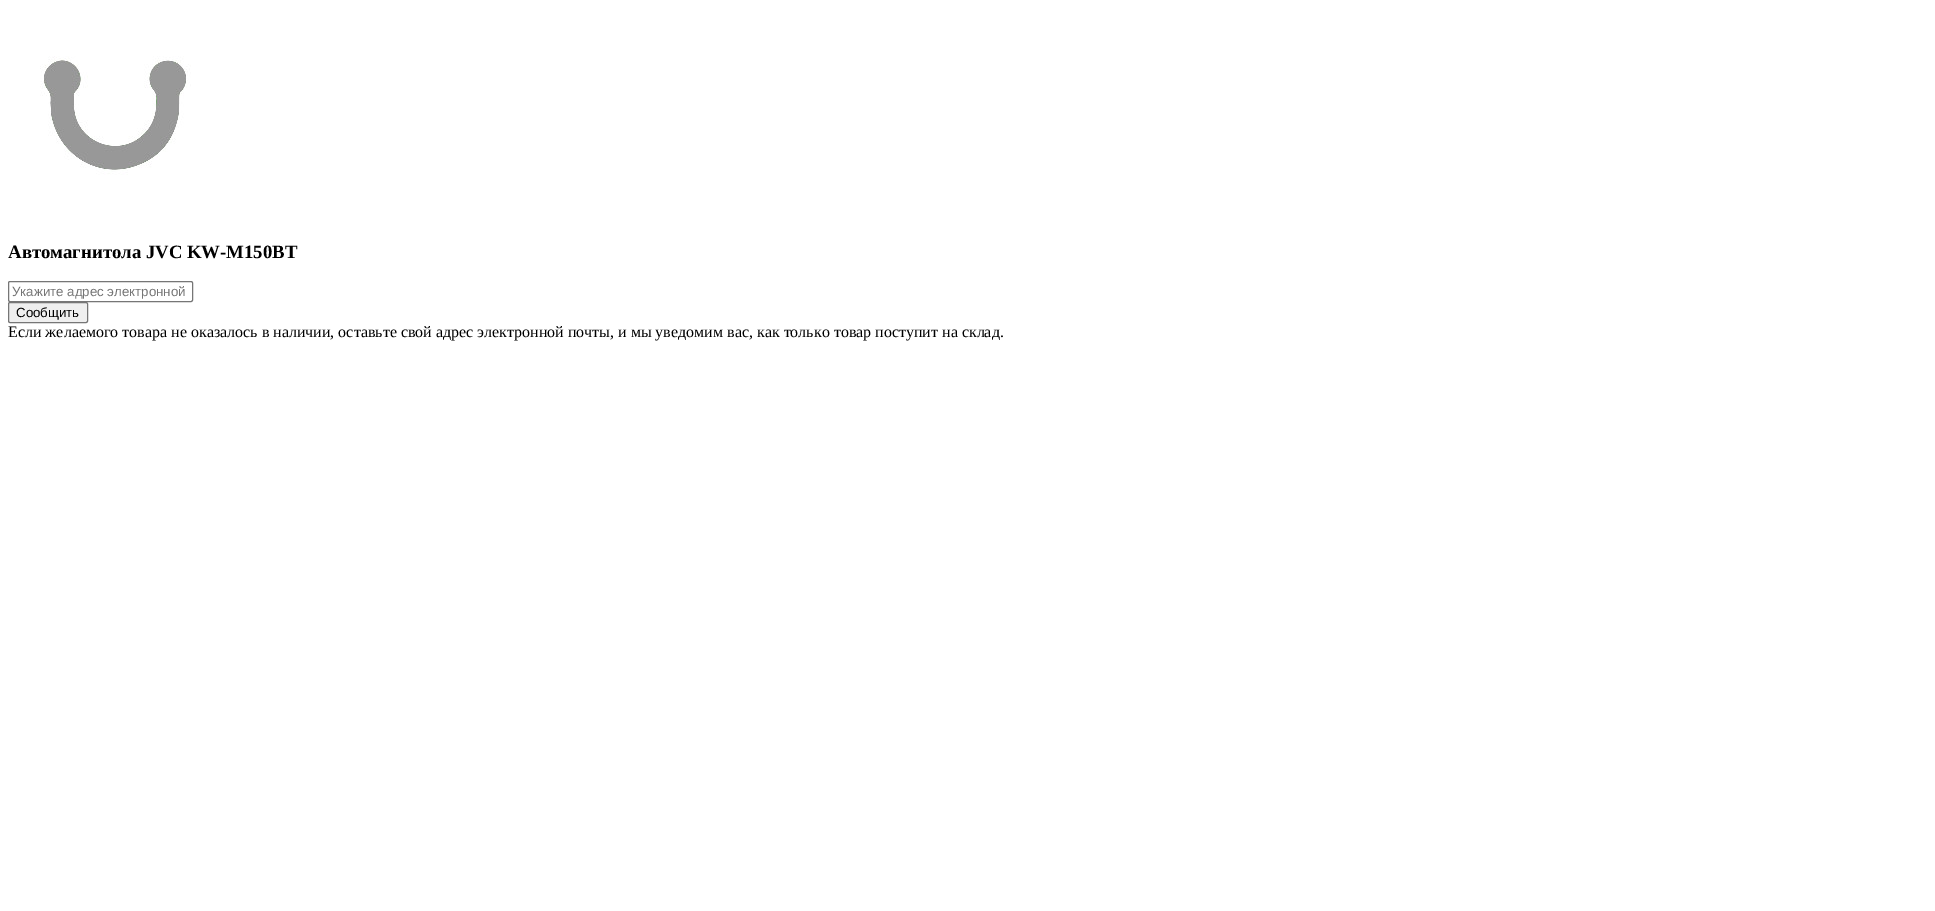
%!PS-Adobe-3.0
%%BoundingBox: 0 0 1935 911
%%LanguageLevel: 3
%%Pages: 1
%%EndComments
%%BeginProlog
/setink { 3 { 255 div 3 1 roll } repeat setrgbcolor } def
/usefont { [ exch dup neg 0 0 3 -1 roll 0 0 ] selectfont } def
/drawtext { setink usefont moveto show } def
/fillbox { setink rectfill } def
/rrect { 5 dict begin { /r /h /w /y /x } { exch def } forall
  x r add y moveto x w add y 2 copy h add r arct x w add y h add x 1 index r arct
  x y h add x y r arct x y 2 copy exch w add exch r arct closepath end } def
/drawimage { 5 dict begin { /h /w /y /x /name } { exch def } forall
  gsave x y translate w h scale
  w h 8 [w 0 0 h 0 0] name (r) file false 3 colorimage grestore end } def
%%EndProlog
%%BeginSetup
<< /PageSize [1935 911] >> setpagedevice
%%EndSetup
%%Page: 1 1
0 911 translate 1 -1 scale
4 setmiterlimit
0 0 1935 911 255 255 255 fillbox
(assets/img1.rgb) 40 56 151 119 drawimage
(Автомагнитола JVC KW-M150BT) 8 258 /LiberationSerif-Bold 18.75 0 0 0 drawtext
118 118 118 setink
8.5 281.5 184 20 1.5 rrect stroke
(Укажите адрес электронной) 12 296 /LiberationSans-Regular 13.3 117 117 117 drawtext
239 239 239 setink
8.5 302.5 79 20 1.5 rrect gsave fill grestore
118 118 118 setink
stroke
(Сообщить) 16 317 /LiberationSans-Regular 13.3 0 0 0 drawtext
(Если желаемого товара не оказалось в наличии, оставьте свой адрес электронной почты, и мы уведомим вас, как только товар поступит на склад.) 8 337 /LiberationSerif-Regular 16 0 0 0 drawtext
showpage
%%EOF
